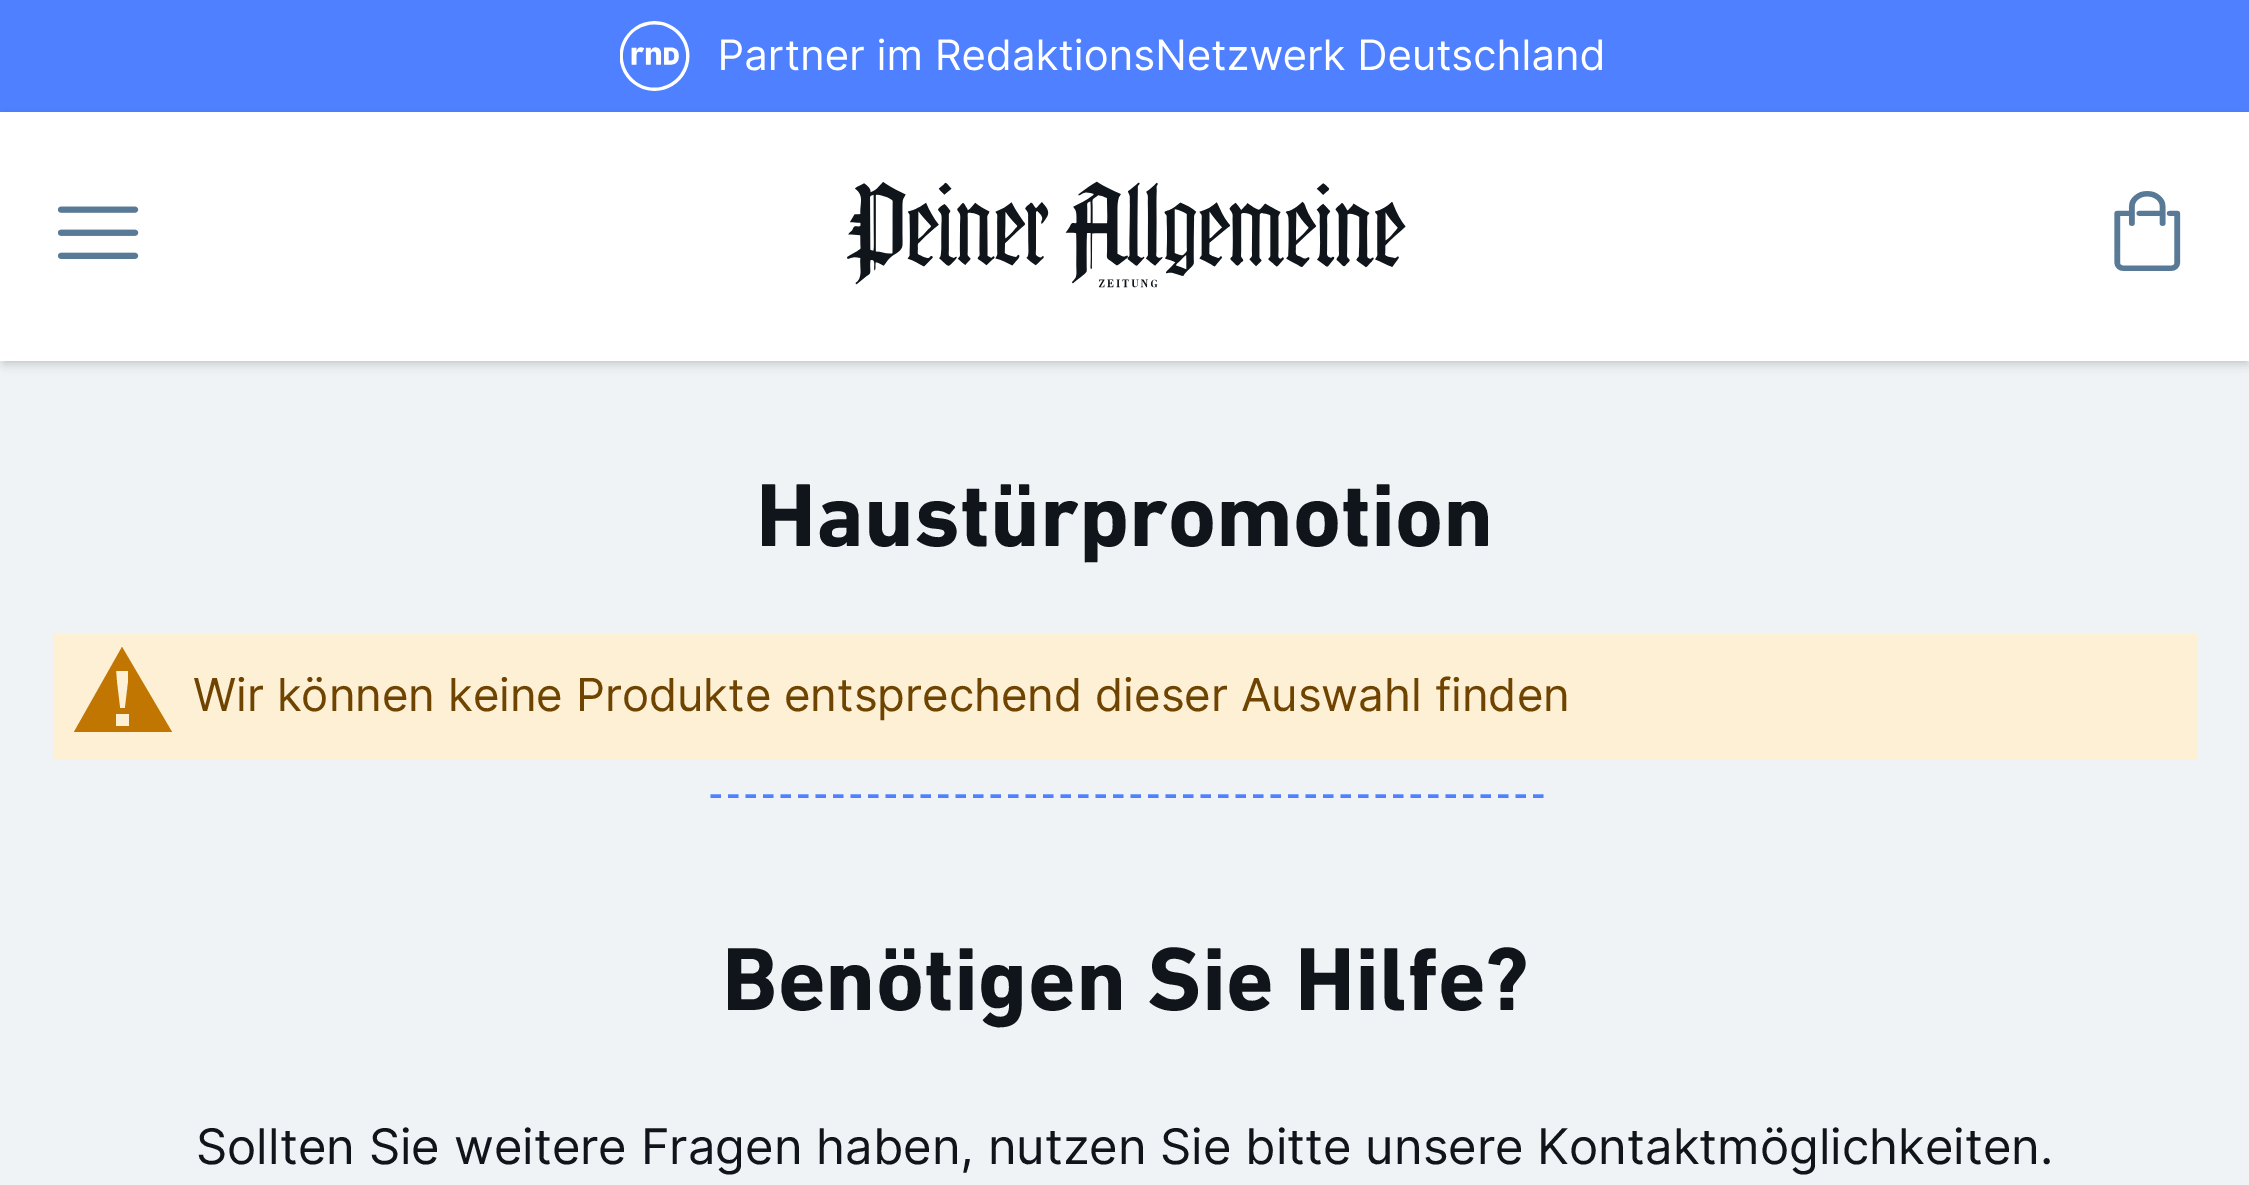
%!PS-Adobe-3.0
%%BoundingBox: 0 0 2249 1185
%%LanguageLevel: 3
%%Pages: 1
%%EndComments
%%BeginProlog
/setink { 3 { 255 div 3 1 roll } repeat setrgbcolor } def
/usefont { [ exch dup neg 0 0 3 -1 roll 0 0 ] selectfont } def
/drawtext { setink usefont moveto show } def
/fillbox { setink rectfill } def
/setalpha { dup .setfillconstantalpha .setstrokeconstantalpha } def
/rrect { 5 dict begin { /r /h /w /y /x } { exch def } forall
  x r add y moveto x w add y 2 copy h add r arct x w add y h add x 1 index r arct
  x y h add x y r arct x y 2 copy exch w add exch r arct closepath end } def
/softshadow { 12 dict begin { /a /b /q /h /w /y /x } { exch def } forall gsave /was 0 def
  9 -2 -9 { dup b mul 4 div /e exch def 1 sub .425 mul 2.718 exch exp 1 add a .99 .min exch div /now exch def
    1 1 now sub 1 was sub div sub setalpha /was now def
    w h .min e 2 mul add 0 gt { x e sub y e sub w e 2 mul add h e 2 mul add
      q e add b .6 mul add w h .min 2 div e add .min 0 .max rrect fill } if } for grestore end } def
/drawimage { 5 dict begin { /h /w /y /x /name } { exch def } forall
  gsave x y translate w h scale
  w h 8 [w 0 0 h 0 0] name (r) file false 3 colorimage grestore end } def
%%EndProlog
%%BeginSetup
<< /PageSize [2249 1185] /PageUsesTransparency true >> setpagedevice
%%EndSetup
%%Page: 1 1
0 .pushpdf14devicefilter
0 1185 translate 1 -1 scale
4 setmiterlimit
0 0 2249 1185 239 243 245 fillbox
0 112 2249 249 255 255 255 fillbox
0 0 2249 112 79 128 255 fillbox
(assets/img1.rgb) 620 21 982 70 drawimage
gsave
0 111 moveto 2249 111 lineto 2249 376 lineto 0 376 lineto closepath 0 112 moveto 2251 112 lineto 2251 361 lineto 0 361 lineto closepath eoclip newpath
15 21 26 setink
4 123 2243 241 0 3.5 0.1 softshadow
grestore
gsave
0 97 moveto 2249 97 lineto 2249 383 lineto 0 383 lineto closepath 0 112 moveto 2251 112 lineto 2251 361 lineto 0 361 lineto closepath eoclip newpath
15 21 26 setink
4 119 2243 242 0 7 0.15 softshadow
grestore
(assets/img2.rgb) 58 206 81 53 drawimage
(assets/img3.rgb) 847 181 559 107 drawimage
(assets/img4.rgb) 2114 191 67 80 drawimage
(Haustürpromotion) 756 546 /DINNext-Bold 91 15 21 26 drawtext
53 634 2145 126 253 240 213 fillbox
192 118 0 setink
122 647 moveto 74 732 lineto 172 732 lineto closepath 128 671 moveto 128 683 lineto 125 708 lineto 120 708 lineto 117 683 lineto 116 671 lineto closepath 116 726 moveto 116 714 lineto 129 714 lineto 129 726 lineto closepath fill
(Wir können keine Produkte entsprechend dieser Auswahl finden) 193 711 /Inter-Regular 45.5 111 68 0 drawtext
79 128 255 setink
3.5 setlinewidth
[10.5 7] 0 setdash
710.5 796 moveto 1543.5 796 lineto stroke
(Benötigen Sie Hilfe?) 722 1010 /DINNext-Bold 91 15 21 26 drawtext
(Sollten Sie weitere Fragen haben, nutzen Sie bitte unsere Kontaktmöglichkeiten.) 196 1164 /Inter-Regular 49 15 21 26 drawtext
.poppdf14devicefilter showpage
%%EOF
